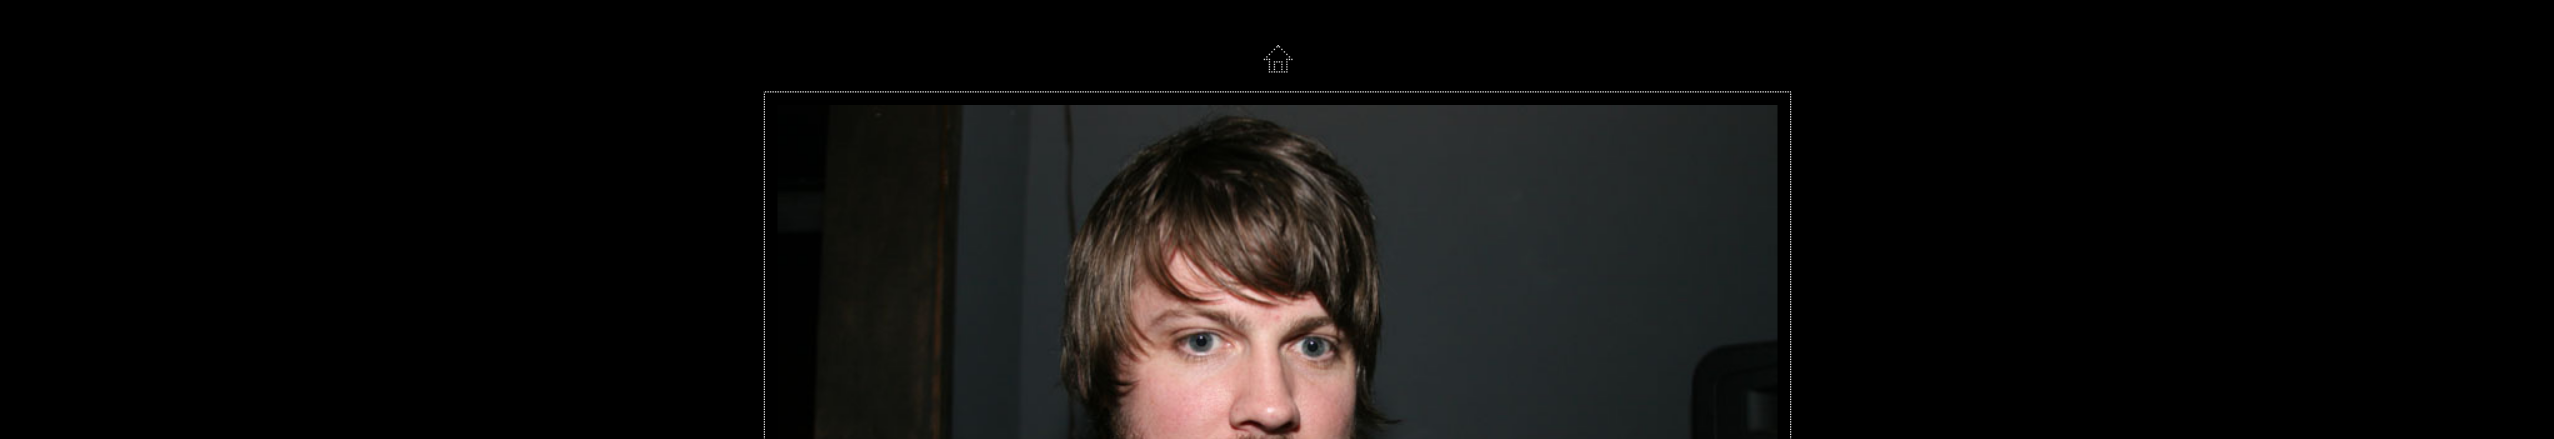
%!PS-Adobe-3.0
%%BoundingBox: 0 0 2554 439
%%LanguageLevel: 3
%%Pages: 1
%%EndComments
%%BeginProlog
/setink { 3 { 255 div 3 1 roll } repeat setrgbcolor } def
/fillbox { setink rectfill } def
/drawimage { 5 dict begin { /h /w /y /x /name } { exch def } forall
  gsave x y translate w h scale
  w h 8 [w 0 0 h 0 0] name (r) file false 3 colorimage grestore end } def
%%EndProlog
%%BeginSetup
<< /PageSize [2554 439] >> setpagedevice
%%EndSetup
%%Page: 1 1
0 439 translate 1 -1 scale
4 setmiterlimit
0 0 2554 439 0 0 0 fillbox
(assets/img1.rgb) 1263 45 30 28 drawimage
(assets/img2.rgb) 763 91 1029 2 drawimage
(assets/img3.rgb) 763 92 2 347 drawimage
(assets/img4.rgb) 777 105 1001 334 drawimage
(assets/img5.rgb) 1790 92 2 347 drawimage
showpage
%%EOF
